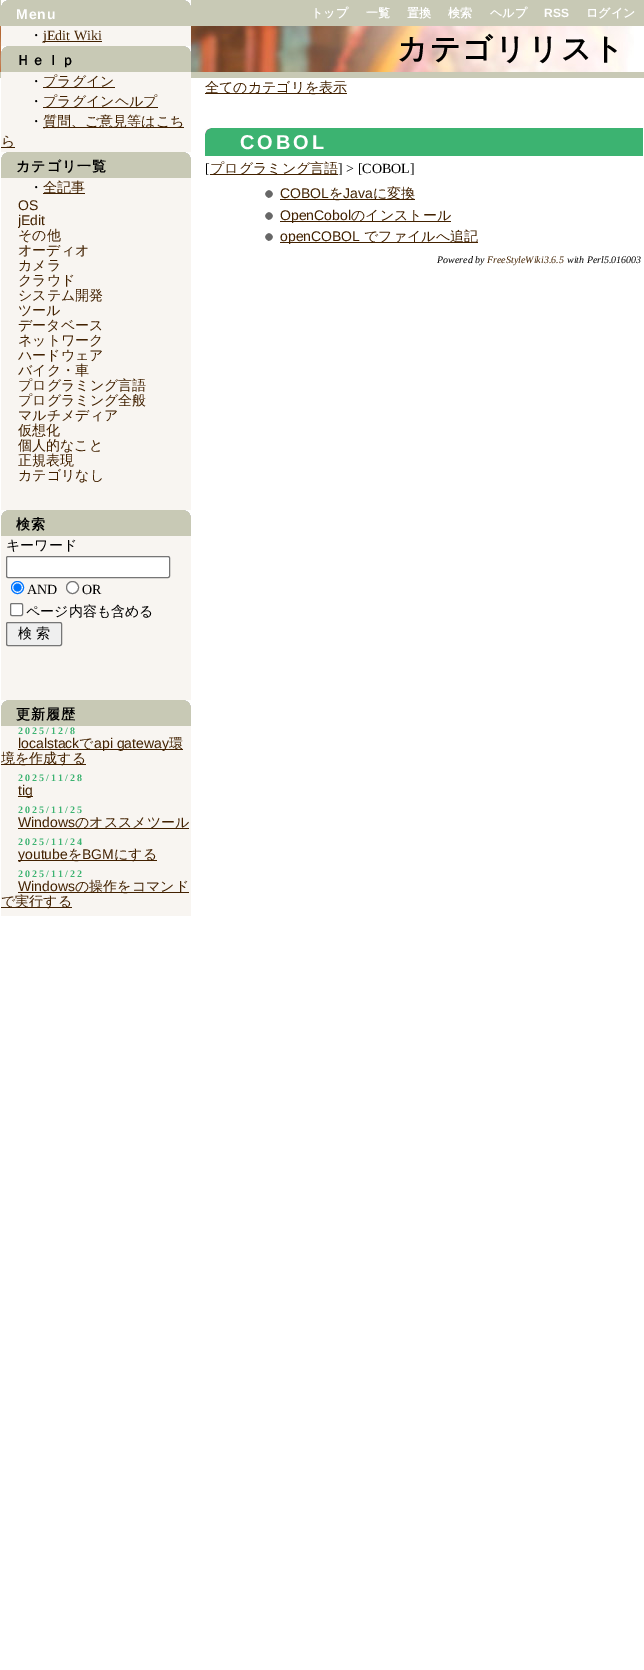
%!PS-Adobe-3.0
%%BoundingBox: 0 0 644 1670
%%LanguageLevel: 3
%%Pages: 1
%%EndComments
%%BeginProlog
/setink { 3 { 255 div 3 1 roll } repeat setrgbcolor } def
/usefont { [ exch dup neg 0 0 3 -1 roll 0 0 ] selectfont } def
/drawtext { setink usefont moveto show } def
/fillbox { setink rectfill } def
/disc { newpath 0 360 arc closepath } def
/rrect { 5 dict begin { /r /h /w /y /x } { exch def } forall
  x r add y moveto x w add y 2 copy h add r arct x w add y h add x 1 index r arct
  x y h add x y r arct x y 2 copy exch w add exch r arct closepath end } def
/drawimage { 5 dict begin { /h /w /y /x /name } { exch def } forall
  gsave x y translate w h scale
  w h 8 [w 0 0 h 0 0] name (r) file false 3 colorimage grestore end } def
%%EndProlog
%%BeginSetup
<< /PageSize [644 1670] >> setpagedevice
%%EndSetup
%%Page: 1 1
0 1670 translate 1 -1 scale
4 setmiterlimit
0 0 644 1670 255 255 255 fillbox
(assets/img2.rgb) 0 26 634 46 drawimage
0 72 644 6 200 201 181 fillbox
1 26 190 890 248 245 241 fillbox
0 0 644 26 200 201 181 fillbox
(assets/img1.rgb) 1 0 190 6 drawimage
/LiberationSans-Bold 14 usefont
255 255 255 setink
16 19 moveto 1 0 (Menu) ashow
(・) 29 40 /WenQuanYiZenHei-Medium 14 0 0 0 drawtext
43 41 59 1 66 33 0 fillbox
(jEdit Wiki) 43 40 /LiberationSerif-Regular 14 66 33 0 drawtext
1 46 190 26 200 201 181 fillbox
(assets/img1.rgb) 1 46 190 6 drawimage
/WenQuanYiZenHei-Bold 14 usefont
0 0 0 setink
16 65 moveto 1 0 (Ｈｅｌｐ) ashow
(・) 29 86 /WenQuanYiZenHei-Medium 14 0 0 0 drawtext
43 87 72 1 66 33 0 fillbox
(プラグイン) 43 86 /WenQuanYiZenHei-Medium 14 66 33 0 drawtext
(・) 29 106 /WenQuanYiZenHei-Medium 14 0 0 0 drawtext
43 107 115 1 66 33 0 fillbox
(プラグインヘルプ) 43 106 /WenQuanYiZenHei-Medium 14 66 33 0 drawtext
(・) 29 126 /WenQuanYiZenHei-Medium 14 0 0 0 drawtext
43 127 141 1 66 33 0 fillbox
(質問、ご意見等はこち) 43 126 /WenQuanYiZenHei-Medium 14 66 33 0 drawtext
1 147 14 1 66 33 0 fillbox
(ら) 1 146 /WenQuanYiZenHei-Medium 14 66 33 0 drawtext
1 152 190 26 200 201 181 fillbox
(assets/img1.rgb) 1 152 190 6 drawimage
/WenQuanYiZenHei-Bold 14 usefont
0 0 0 setink
16 171 moveto 1 0 (カテゴリ一覧) ashow
(・) 29 192 /WenQuanYiZenHei-Medium 14 0 0 0 drawtext
43 193 42 1 66 33 0 fillbox
(全記事) 43 192 /WenQuanYiZenHei-Medium 14 66 33 0 drawtext
(OS) 18 210 /LiberationSans-Regular 14 66 33 0 drawtext
(jEdit) 18 225 /LiberationSans-Regular 14 66 33 0 drawtext
(その他) 18 240 /WenQuanYiZenHei-Medium 14 66 33 0 drawtext
17 227 1 1 248 245 241 fillbox
(オーディオ) 18 255 /WenQuanYiZenHei-Medium 14 66 33 0 drawtext
(カメラ) 18 270 /WenQuanYiZenHei-Medium 14 66 33 0 drawtext
(クラウド) 18 285 /WenQuanYiZenHei-Medium 14 66 33 0 drawtext
(システム開発) 18 300 /WenQuanYiZenHei-Medium 14 66 33 0 drawtext
(ツール) 18 315 /WenQuanYiZenHei-Medium 14 66 33 0 drawtext
(データベース) 18 330 /WenQuanYiZenHei-Medium 14 66 33 0 drawtext
(ネットワーク) 18 345 /WenQuanYiZenHei-Medium 14 66 33 0 drawtext
(ハードウェア) 18 360 /WenQuanYiZenHei-Medium 14 66 33 0 drawtext
(バイク・車) 18 375 /WenQuanYiZenHei-Medium 14 66 33 0 drawtext
(プログラミング言語) 18 390 /WenQuanYiZenHei-Medium 14 66 33 0 drawtext
(プログラミング全般) 18 405 /WenQuanYiZenHei-Medium 14 66 33 0 drawtext
(マルチメディア) 18 420 /WenQuanYiZenHei-Medium 14 66 33 0 drawtext
(仮想化) 18 435 /WenQuanYiZenHei-Medium 14 66 33 0 drawtext
(個人的なこと) 18 450 /WenQuanYiZenHei-Medium 14 66 33 0 drawtext
(正規表現) 18 465 /WenQuanYiZenHei-Medium 14 66 33 0 drawtext
(カテゴリなし) 18 480 /WenQuanYiZenHei-Medium 14 66 33 0 drawtext
1 510 190 26 200 201 181 fillbox
(assets/img1.rgb) 1 510 190 6 drawimage
/WenQuanYiZenHei-Bold 14 usefont
0 0 0 setink
16 529 moveto 1 0 (検索) ashow
(キーワード) 6 550 /WenQuanYiZenHei-Medium 14 0 0 0 drawtext
255 255 255 setink
6.5 556.5 163 21 1.5 rrect gsave fill grestore
118 118 118 setink
stroke
255 255 255 setink
17.5 587.5 6 disc gsave fill grestore
0 117 255 setink
stroke
17.5 587.5 4 disc fill
(AND) 27 594 /LiberationSerif-Regular 14 0 0 0 drawtext
255 255 255 setink
72.5 587.5 6 disc gsave fill grestore
118 118 118 setink
stroke
(OR) 82 594 /LiberationSerif-Regular 14 0 0 0 drawtext
255 255 255 setink
10.5 603.5 12 12 1.5 rrect gsave fill grestore
118 118 118 setink
stroke
(ページ内容も含める) 26 616 /WenQuanYiZenHei-Medium 14 0 0 0 drawtext
239 239 239 setink
6.5 622.5 55 23 1.5 rrect gsave fill grestore
118 118 118 setink
stroke
(検 索) 18 638 /WenQuanYiZenHei-Medium 14 0 0 0 drawtext
1 700 190 26 200 201 181 fillbox
(assets/img1.rgb) 1 700 190 6 drawimage
/WenQuanYiZenHei-Bold 14 usefont
0 0 0 setink
16 719 moveto 1 0 (更新履歴) ashow
/LiberationSerif-Bold 10 usefont
60 179 113 setink
18 734 moveto 2 0 (2025/12/8) ashow
(localstack) 18 748 /LiberationSans-Regular 14 66 33 0 drawtext
18 749 165 1 66 33 0 fillbox
(で) 79 748 /WenQuanYiZenHei-Medium 14 66 33 0 drawtext
(api gateway) 94 748 /LiberationSans-Regular 14 66 33 0 drawtext
(環) 169 748 /WenQuanYiZenHei-Medium 14 66 33 0 drawtext
1 764 85 1 66 33 0 fillbox
(境を作成する) 1 763 /WenQuanYiZenHei-Medium 14 66 33 0 drawtext
/LiberationSerif-Bold 10 usefont
60 179 113 setink
18 781 moveto 2 0 (2025/11/28) ashow
18 796 15 1 66 33 0 fillbox
(tig) 18 795 /LiberationSans-Regular 14 66 33 0 drawtext
/LiberationSerif-Bold 10 usefont
60 179 113 setink
18 813 moveto 2 0 (2025/11/25) ashow
(Windows) 18 827 /LiberationSans-Regular 14 66 33 0 drawtext
18 828 171 1 66 33 0 fillbox
(のオススメツール) 75 827 /WenQuanYiZenHei-Medium 14 66 33 0 drawtext
/LiberationSerif-Bold 10 usefont
60 179 113 setink
18 845 moveto 2 0 (2025/11/24) ashow
18 860 139 1 66 33 0 fillbox
(youtube) 18 859 /LiberationSans-Regular 14 66 33 0 drawtext
(を) 68 859 /WenQuanYiZenHei-Medium 14 66 33 0 drawtext
(BGM) 82 859 /LiberationSans-Regular 14 66 33 0 drawtext
(にする) 114 859 /WenQuanYiZenHei-Medium 14 66 33 0 drawtext
/LiberationSerif-Bold 10 usefont
60 179 113 setink
18 877 moveto 2 0 (2025/11/22) ashow
(Windows) 18 891 /LiberationSans-Regular 14 66 33 0 drawtext
18 892 171 1 66 33 0 fillbox
(の操作をコマンド) 75 891 /WenQuanYiZenHei-Medium 14 66 33 0 drawtext
1 907 71 1 66 33 0 fillbox
(で実行する) 1 906 /WenQuanYiZenHei-Medium 14 66 33 0 drawtext
(トップ) 311 17 /WenQuanYiZenHei-Bold 12 255 255 255 drawtext
(一覧) 366 17 /WenQuanYiZenHei-Bold 12 255 255 255 drawtext
(置換) 407 17 /WenQuanYiZenHei-Bold 12 255 255 255 drawtext
(検索) 448 17 /WenQuanYiZenHei-Bold 12 255 255 255 drawtext
(ヘルプ) 490 17 /WenQuanYiZenHei-Bold 12 255 255 255 drawtext
(RSS) 544 17 /LiberationSans-Bold 12 255 255 255 drawtext
(ログイン) 586 17 /WenQuanYiZenHei-Bold 12 255 255 255 drawtext
/WenQuanYiZenHei-Bold 30 usefont
0 0 0 setink
397 59 moveto 2 0 (カテゴリリスト) ashow
205 93 142 1 66 33 0 fillbox
(全てのカテゴリを表示) 205 92 /WenQuanYiZenHei-Medium 14 66 33 0 drawtext
205 128 438 28 60 179 113 fillbox
(assets/img3.rgb) 205 128 6 6 drawimage
/LiberationSans-Bold 20 usefont
255 255 255 setink
240 149 moveto 3 0 (COBOL) ashow
([) 205 173 /LiberationSerif-Regular 14 0 0 0 drawtext
210 174 128 1 66 33 0 fillbox
(プログラミング言語) 210 173 /WenQuanYiZenHei-Medium 14 66 33 0 drawtext
(] > [COBOL]) 338 173 /LiberationSerif-Regular 14 0 0 0 drawtext
(assets/img4.rgb) 265 190 8 8 drawimage
(COBOL) 280 198 /LiberationSans-Regular 14 66 33 0 drawtext
280 199 135 1 66 33 0 fillbox
(を) 329 198 /WenQuanYiZenHei-Medium 14 66 33 0 drawtext
(Java) 343 198 /LiberationSans-Regular 14 66 33 0 drawtext
(に変換) 373 198 /WenQuanYiZenHei-Medium 14 66 33 0 drawtext
(assets/img4.rgb) 265 212 8 8 drawimage
280 221 171 1 66 33 0 fillbox
(OpenCobol) 280 220 /LiberationSans-Regular 14 66 33 0 drawtext
(のインストール) 351 220 /WenQuanYiZenHei-Medium 14 66 33 0 drawtext
(assets/img4.rgb) 265 233 8 8 drawimage
280 242 198 1 66 33 0 fillbox
(openCOBOL) 280 241 /LiberationSans-Regular 14 66 33 0 drawtext
(でファイルへ追記) 364 241 /WenQuanYiZenHei-Medium 14 66 33 0 drawtext
(Powered by) 437 263 /LiberationSerif-Italic 10 0 0 0 drawtext
(FreeStyleWiki3.6.5) 487 263 /LiberationSerif-Italic 10 66 33 0 drawtext
(with Perl5.016003) 567 263 /LiberationSerif-Italic 10 0 0 0 drawtext
showpage
%%EOF
